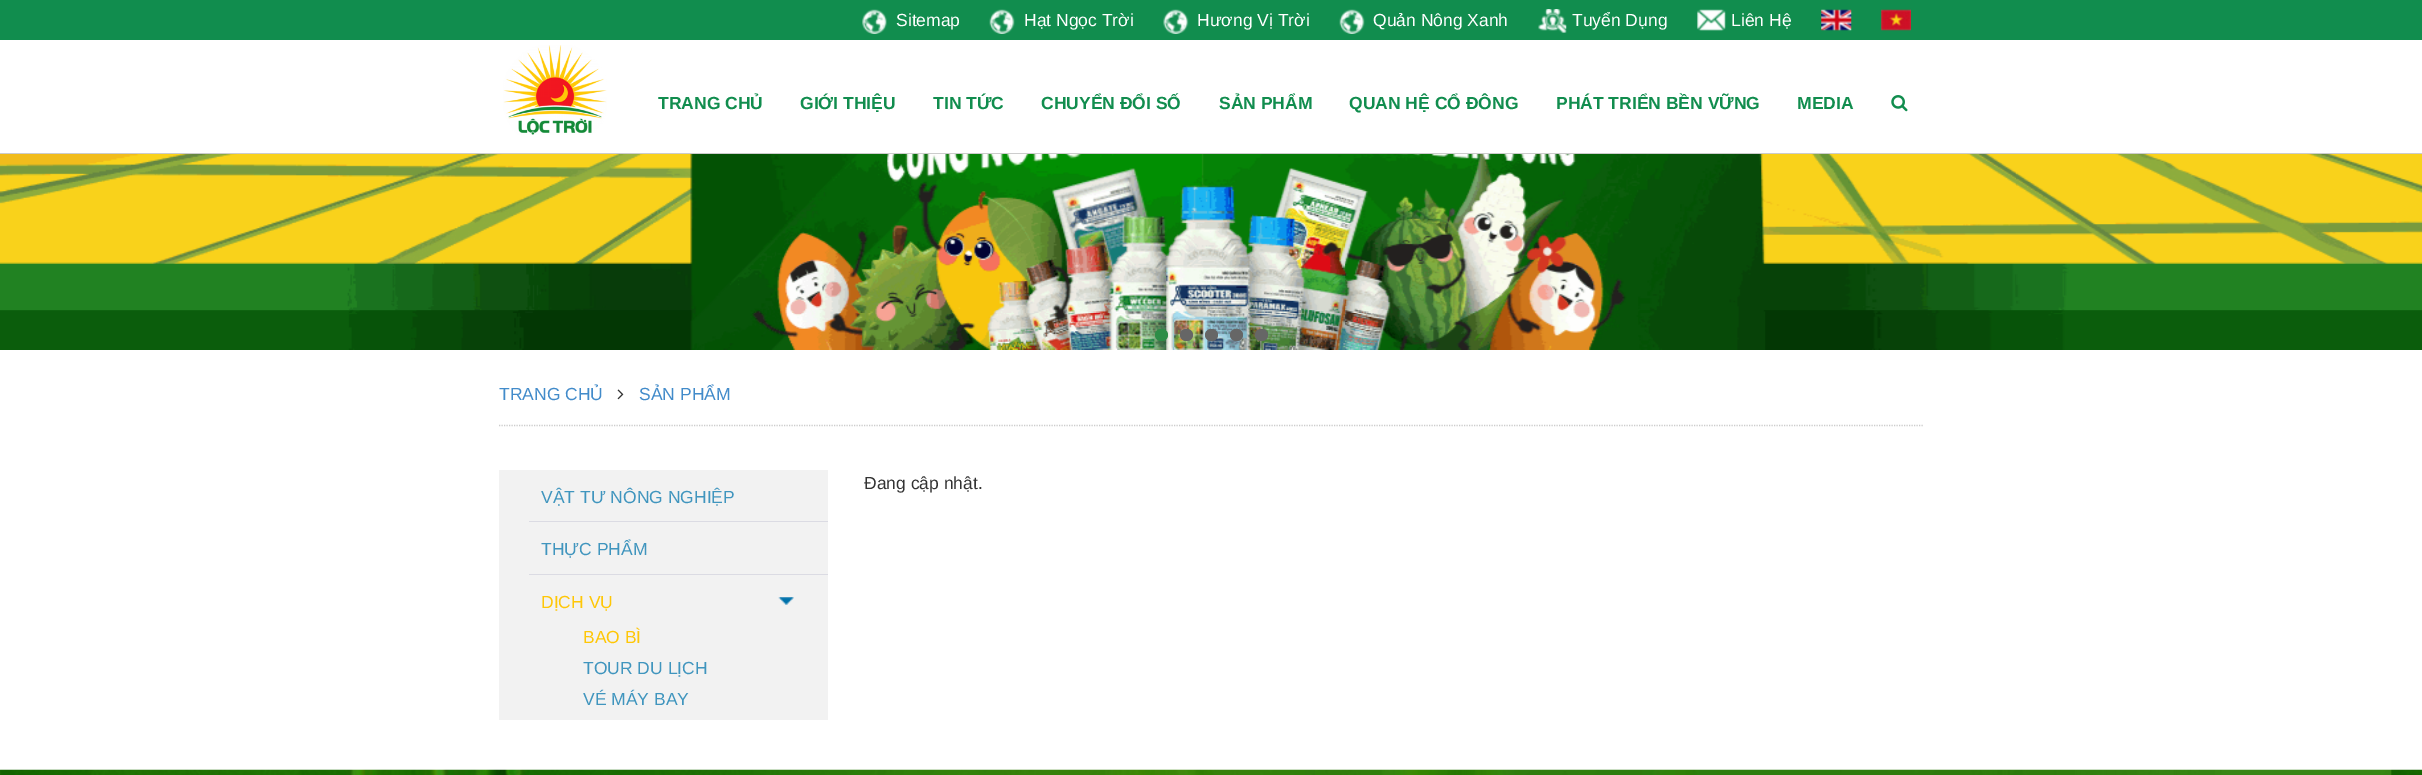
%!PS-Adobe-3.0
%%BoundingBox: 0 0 2422 775
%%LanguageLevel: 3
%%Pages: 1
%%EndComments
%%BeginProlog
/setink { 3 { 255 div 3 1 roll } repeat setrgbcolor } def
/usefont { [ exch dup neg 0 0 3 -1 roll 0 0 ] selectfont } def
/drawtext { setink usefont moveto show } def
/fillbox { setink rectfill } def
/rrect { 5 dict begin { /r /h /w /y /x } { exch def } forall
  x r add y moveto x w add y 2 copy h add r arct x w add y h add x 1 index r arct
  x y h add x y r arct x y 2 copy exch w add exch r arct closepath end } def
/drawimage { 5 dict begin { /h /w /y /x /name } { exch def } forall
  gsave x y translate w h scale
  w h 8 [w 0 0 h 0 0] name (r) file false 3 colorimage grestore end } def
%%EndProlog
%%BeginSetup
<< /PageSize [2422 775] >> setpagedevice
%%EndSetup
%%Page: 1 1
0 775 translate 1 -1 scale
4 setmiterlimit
0 0 2422 775 255 255 255 fillbox
0 153 2422 1 204 204 204 fillbox
0 0 2422 40 17 141 78 fillbox
(assets/img1.rgb) 862 9 25 25 drawimage
(Sitemap) 896 26 /LiberationSans-Regular 17.5 255 255 255 drawtext
(assets/img2.rgb) 989 9 26 25 drawimage
(Hạt Ngọc Trời) 1024 26 /LiberationSans-Regular 17.5 255 255 255 drawtext
(assets/img3.rgb) 1163 9 26 25 drawimage
(Hương Vị Trời) 1197 26 /LiberationSans-Regular 17.5 255 255 255 drawtext
(assets/img4.rgb) 1339 9 26 25 drawimage
(Quản Nông Xanh) 1373 26 /LiberationSans-Regular 17.5 255 255 255 drawtext
(assets/img5.rgb) 1538 9 29 24 drawimage
(Tuyển Dụng) 1572 26 /LiberationSans-Regular 17.5 255 255 255 drawtext
(assets/img6.rgb) 1697 9 29 22 drawimage
(Liên Hệ) 1731 26 /LiberationSans-Regular 17.5 255 255 255 drawtext
(assets/img7.rgb) 1821 9 31 22 drawimage
(assets/img8.rgb) 1881 9 30 22 drawimage
(assets/img9.rgb) 503 45 104 90 drawimage
(TRANG CHỦ) 658 109 /LiberationSans-Bold 17.5 17 141 78 drawtext
(GIỚI THIỆU) 800 109 /LiberationSans-Bold 17.5 17 141 78 drawtext
(TIN TỨC) 933 109 /LiberationSans-Bold 17.5 17 141 78 drawtext
(CHUYỂN ĐỔI SỐ) 1041 109 /LiberationSans-Bold 17.5 17 141 78 drawtext
(SẢN PHẨM) 1219 109 /LiberationSans-Bold 17.5 17 141 78 drawtext
(QUAN HỆ CỔ ĐÔNG) 1349 109 /LiberationSans-Bold 17.5 17 141 78 drawtext
(PHÁT TRIỂN BỀN VỮNG) 1556 109 /LiberationSans-Bold 17.5 17 141 78 drawtext
(MEDIA) 1797 109 /LiberationSans-Bold 17.5 17 141 78 drawtext
(assets/img10.rgb) 1891 95 17 17 drawimage
(assets/img11.rgb) 0 154 2422 196 drawimage
45 141 71 setink
1155 329 13 12 6 rrect fill
102 102 102 setink
1180 329 13 12 6 rrect fill
1205 329 13 12 6 rrect fill
1230 329 13 12 6 rrect fill
1255 329 13 12 6 rrect fill
204 204 204 setink
1.2 setlinewidth
[1.25 1.25] 0 setdash
499 425.5 moveto 1924 425.5 lineto stroke
(TRANG CHỦ) 499 400 /LiberationSans-Regular 17.5 66 139 202 drawtext
(assets/img12.rgb) 617 389 7 11 drawimage
(SẢN PHẨM) 639 400 /LiberationSans-Regular 17.5 66 139 202 drawtext
(Đang cập nhật.) 864 489 /LiberationSans-Regular 17.5 51 51 51 drawtext
499 470 329 250 242 242 242 fillbox
529 521 299 1 219 219 227 fillbox
(VẬT TƯ NÔNG NGHIỆP) 541 503 /LiberationSans-Regular 17.5 64 149 190 drawtext
529 574 299 1 219 219 227 fillbox
(THỰC PHẨM) 541 555 /LiberationSans-Regular 17.5 64 149 190 drawtext
(assets/img13.rgb) 778 597 16 8 drawimage
(DỊCH VỤ) 541 608 /LiberationSans-Regular 17.5 255 199 7 drawtext
(BAO BÌ) 583 643 /LiberationSans-Regular 17.5 255 199 7 drawtext
(TOUR DU LỊCH) 583 674 /LiberationSans-Regular 17.5 64 149 190 drawtext
(VÉ MÁY BAY) 583 705 /LiberationSans-Regular 17.5 64 149 190 drawtext
(assets/img14.rgb) 0 769 2422 6 drawimage
showpage
%%EOF
